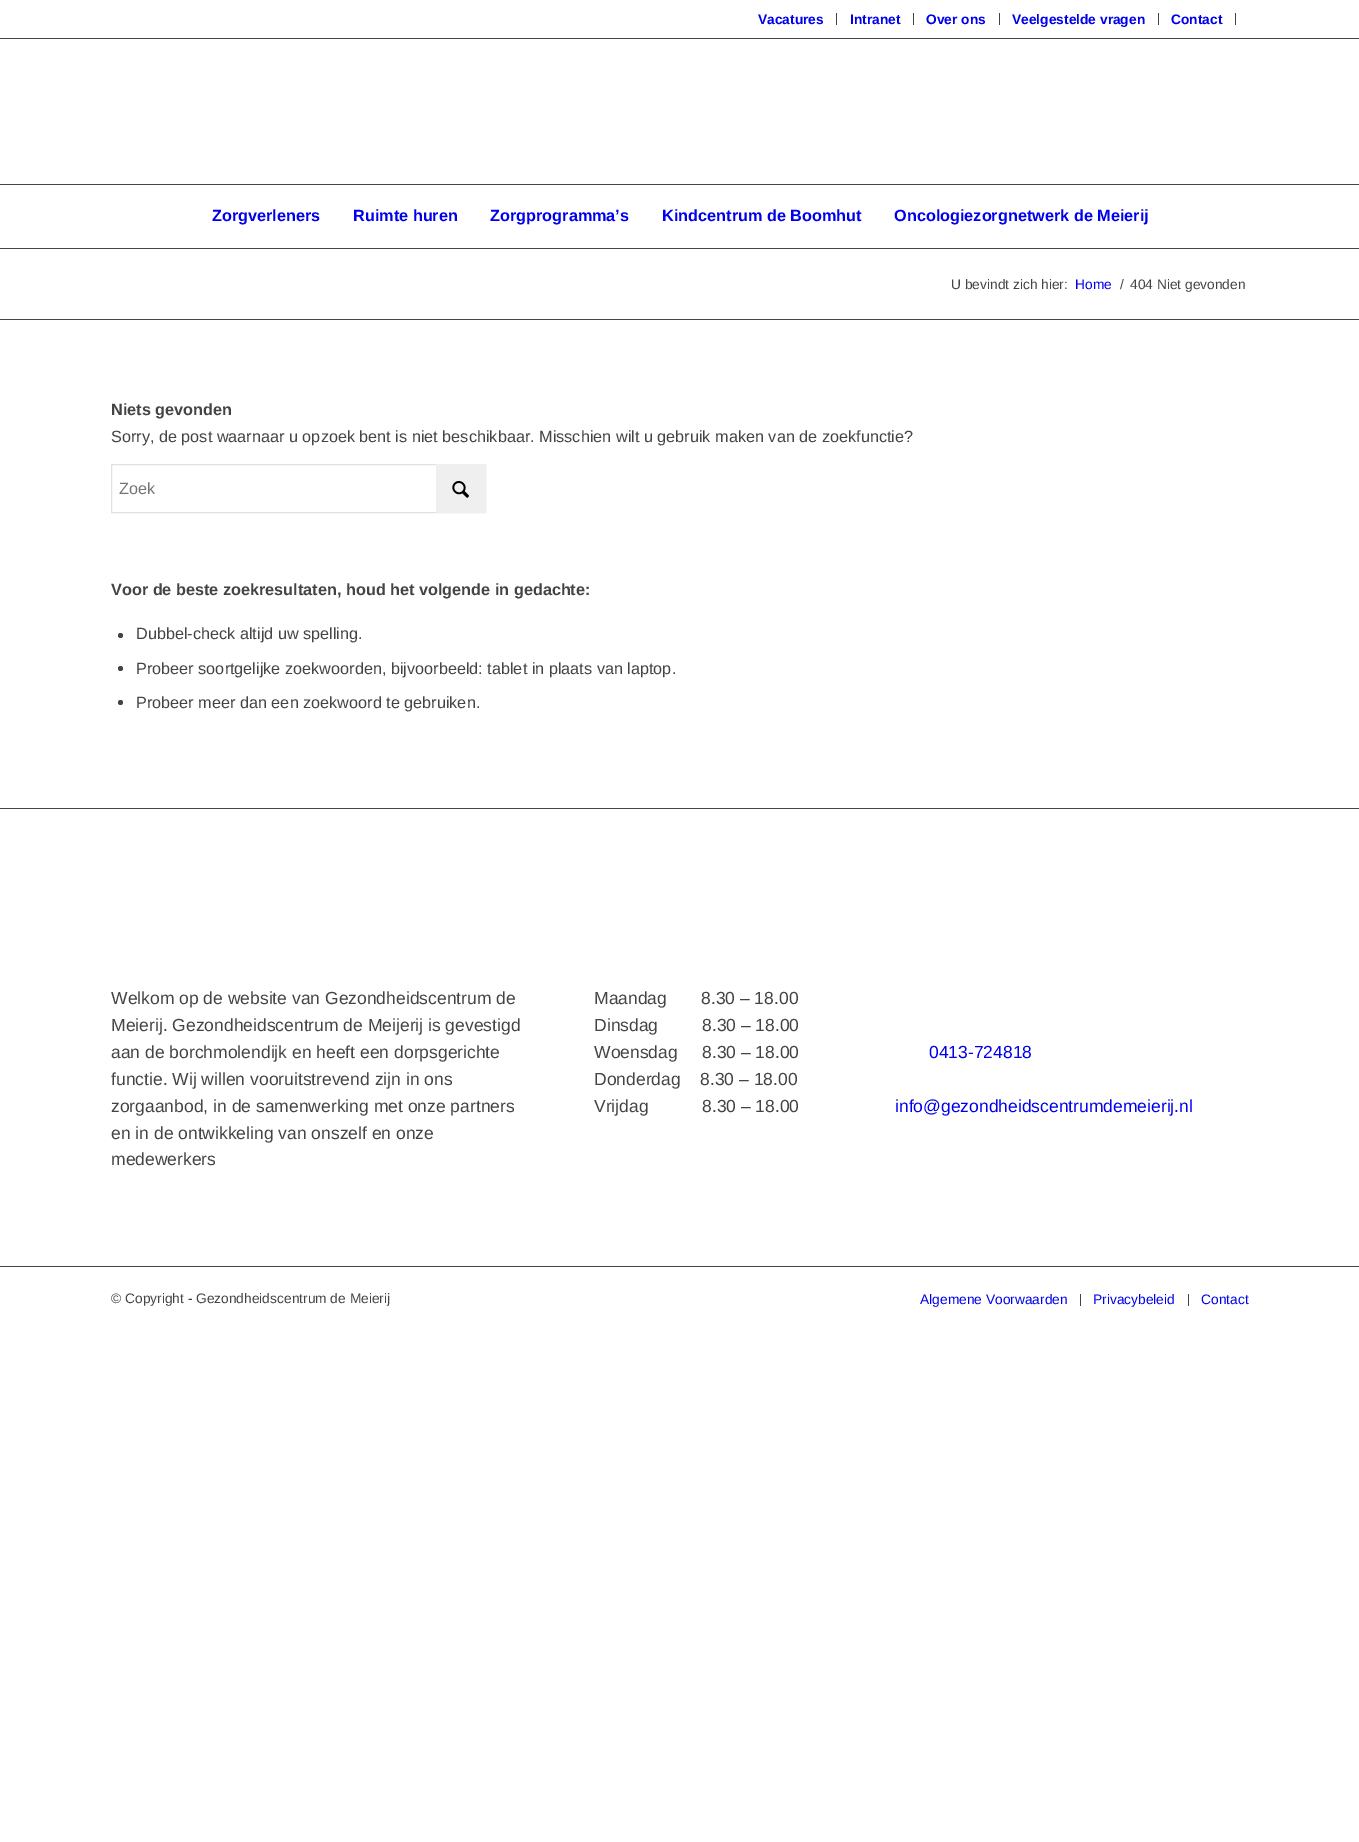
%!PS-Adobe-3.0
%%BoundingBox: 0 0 1359 1842
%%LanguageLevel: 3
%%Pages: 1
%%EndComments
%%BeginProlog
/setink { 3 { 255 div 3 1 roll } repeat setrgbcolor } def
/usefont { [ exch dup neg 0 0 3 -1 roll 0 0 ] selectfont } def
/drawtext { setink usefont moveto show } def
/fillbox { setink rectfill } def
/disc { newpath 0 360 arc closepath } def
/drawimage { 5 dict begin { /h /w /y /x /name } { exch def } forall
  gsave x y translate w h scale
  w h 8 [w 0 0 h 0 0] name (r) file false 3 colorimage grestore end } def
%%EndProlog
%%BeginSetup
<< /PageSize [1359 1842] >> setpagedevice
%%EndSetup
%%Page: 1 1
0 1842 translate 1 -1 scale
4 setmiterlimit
0 0 1359 1842 255 255 255 fillbox
836 13 1 12 68 68 68 fillbox
(Vacatures) 758 24 /LiberationSans-Bold 13.75 0 0 238 drawtext
913 13 1 12 68 68 68 fillbox
(Intranet) 850 24 /LiberationSans-Bold 13.75 0 0 238 drawtext
999 13 1 12 68 68 68 fillbox
(Over ons) 926 24 /LiberationSans-Bold 13.75 0 0 238 drawtext
1158 13 1 12 68 68 68 fillbox
(Veelgestelde vragen) 1012 24 /LiberationSans-Bold 13.75 0 0 238 drawtext
1235 13 1 12 68 68 68 fillbox
(Contact) 1171 24 /LiberationSans-Bold 13.75 0 0 238 drawtext
0 38 1359 1 68 68 68 fillbox
0 184 1359 1 68 68 68 fillbox
(Zorgverleners) 212 221 /LiberationSans-Bold 16.25 0 0 238 drawtext
(Ruimte huren) 353 221 /LiberationSans-Bold 16.25 0 0 238 drawtext
(Zorgprogramma’s) 490 221 /LiberationSans-Bold 16.25 0 0 238 drawtext
(Kindcentrum de Boomhut) 662 221 /LiberationSans-Bold 16.25 0 0 238 drawtext
(Oncologiezorgnetwerk de Meierij) 894 221 /LiberationSans-Bold 16.25 0 0 238 drawtext
0 248 1359 1 68 68 68 fillbox
(U bevindt zich hier:) 951 289 /LiberationSans-Regular 13.75 68 68 68 drawtext
(Home) 1075 289 /LiberationSans-Regular 13.75 0 0 238 drawtext
(/) 1120 289 /LiberationSans-Regular 13.75 68 68 68 drawtext
(404 Niet gevonden) 1130 289 /LiberationSans-Regular 13.75 68 68 68 drawtext
0 319 1359 1 68 68 68 fillbox
(Niets gevonden) 111 415 /LiberationSans-Bold 16.25 68 68 68 drawtext
(Sorry, de post waarnaar u opzoek bent is niet beschikbaar. Misschien wilt u gebruik maken van de zoekfunctie?) 111 442 /LiberationSans-Regular 16.25 68 68 68 drawtext
225 225 225 setink
111.5 464.5 374 48 rectstroke
436 464 50 49 239 239 239 fillbox
(Zoek) 119 494 /LiberationSans-Regular 16.25 117 117 117 drawtext
(assets/img1.rgb) 452 481 17 17 drawimage
(Voor de beste zoekresultaten, houd het volgende in gedachte:) 111 595 /LiberationSans-Bold 16.25 68 68 68 drawtext
120.5 635.5 2.5 disc fill
(Dubbel-check altijd uw spelling.) 136 639 /LiberationSans-Regular 16.25 68 68 68 drawtext
120.5 668.5 2.5 disc fill
(Probeer soortgelijke zoekwoorden, bijvoorbeeld: tablet in plaats van laptop.) 136 674 /LiberationSans-Regular 16.25 68 68 68 drawtext
120.5 702.5 2.5 disc fill
(Probeer meer dan een zoekwoord te gebruiken.) 136 708 /LiberationSans-Regular 16.25 68 68 68 drawtext
0 808 1359 1 68 68 68 fillbox
(Welkom op de website van Gezondheidscentrum de) 111 1004 /LiberationSans-Regular 17.5 68 68 68 drawtext
(Meierij. Gezondheidscentrum de Meijerij is gevestigd) 111 1031 /LiberationSans-Regular 17.5 68 68 68 drawtext
(aan de borchmolendijk en heeft een dorpsgerichte) 111 1058 /LiberationSans-Regular 17.5 68 68 68 drawtext
(functie. Wij willen vooruitstrevend zijn in ons) 111 1085 /LiberationSans-Regular 17.5 68 68 68 drawtext
(zorgaanbod, in de samenwerking met onze partners) 111 1112 /LiberationSans-Regular 17.5 68 68 68 drawtext
(en in de ontwikkeling van onszelf en onze) 111 1139 /LiberationSans-Regular 17.5 68 68 68 drawtext
(medewerkers) 111 1165 /LiberationSans-Regular 17.5 68 68 68 drawtext
(Maandag       8.30 – 18.00) 594 1004 /LiberationSans-Regular 17.5 68 68 68 drawtext
(Dinsdag         8.30 – 18.00) 594 1031 /LiberationSans-Regular 17.5 68 68 68 drawtext
(Woensdag     8.30 – 18.00) 594 1058 /LiberationSans-Regular 17.5 68 68 68 drawtext
(Donderdag    8.30 – 18.00) 594 1085 /LiberationSans-Regular 17.5 68 68 68 drawtext
(Vrijdag           8.30 – 18.00) 594 1112 /LiberationSans-Regular 17.5 68 68 68 drawtext
(0413-724818) 929 1058 /LiberationSans-Regular 17.5 0 0 238 drawtext
(info@gezondheidscentrumdemeierij.nl) 895 1112 /LiberationSans-Regular 17.5 0 0 238 drawtext
0 1266 1359 1 68 68 68 fillbox
(© Copyright - Gezondheidscentrum de Meierij) 111 1303 /LiberationSans-Regular 13.75 68 68 68 drawtext
(Algemene Voorwaarden) 920 1304 /LiberationSans-Regular 13.75 0 0 238 drawtext
1080 1294 1 12 68 68 68 fillbox
(Privacybeleid) 1093 1304 /LiberationSans-Regular 13.75 0 0 238 drawtext
1188 1294 1 12 68 68 68 fillbox
(Contact) 1201 1304 /LiberationSans-Regular 13.75 0 0 238 drawtext
showpage
%%EOF
